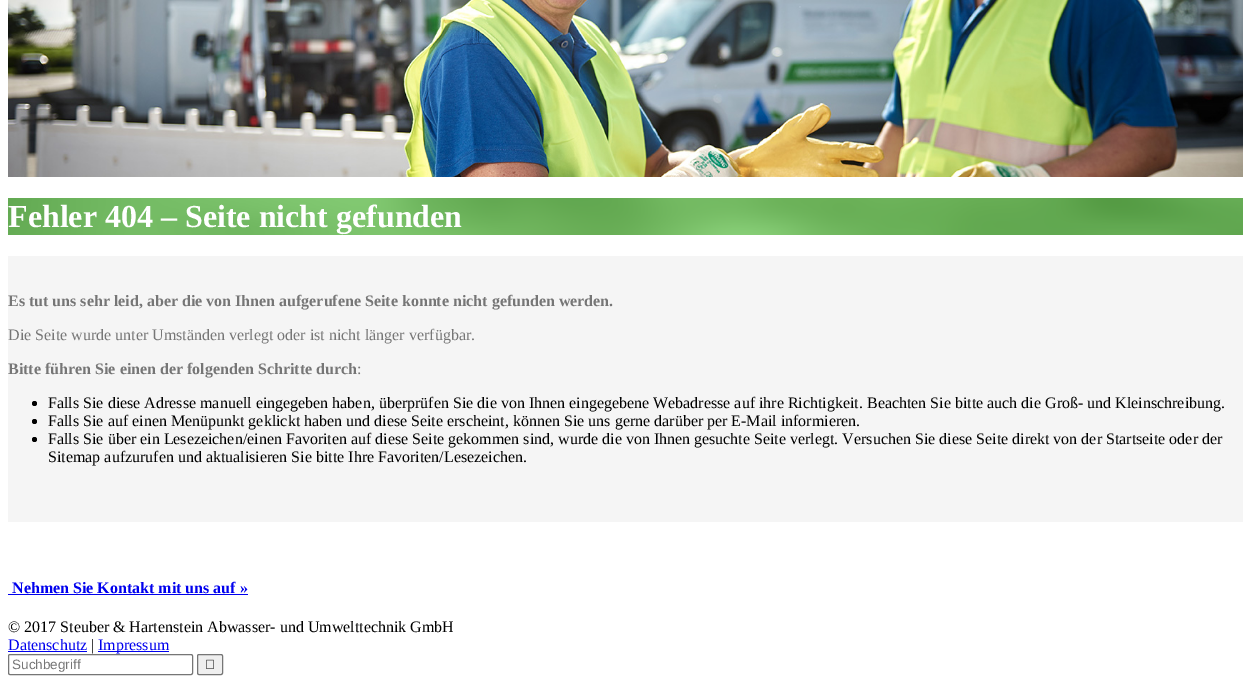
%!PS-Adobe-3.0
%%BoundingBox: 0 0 1251 683
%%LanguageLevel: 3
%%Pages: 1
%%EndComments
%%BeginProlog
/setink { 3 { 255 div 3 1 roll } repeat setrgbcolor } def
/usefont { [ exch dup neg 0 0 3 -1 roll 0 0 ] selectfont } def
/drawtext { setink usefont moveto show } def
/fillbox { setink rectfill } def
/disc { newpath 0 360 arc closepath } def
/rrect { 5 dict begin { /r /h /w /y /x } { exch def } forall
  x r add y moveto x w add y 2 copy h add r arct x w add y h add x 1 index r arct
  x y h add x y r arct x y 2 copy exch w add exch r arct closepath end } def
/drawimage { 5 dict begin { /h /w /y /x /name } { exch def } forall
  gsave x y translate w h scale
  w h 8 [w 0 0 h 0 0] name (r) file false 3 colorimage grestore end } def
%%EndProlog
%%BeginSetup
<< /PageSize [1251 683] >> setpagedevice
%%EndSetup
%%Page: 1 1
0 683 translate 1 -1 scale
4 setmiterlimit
0 0 1251 683 255 255 255 fillbox
(assets/img1.rgb) 8 0 1235 177 drawimage
8 198 1235 37 65 208 33 fillbox
(assets/img2.rgb) 8 198 1235 37 drawimage
(Fehler 404 – Seite nicht gefunden) 8 227 /LiberationSerif-Bold 32 255 255 255 drawtext
8 256 1235 266 245 245 245 fillbox
(Es tut uns sehr leid, aber die von Ihnen aufgerufene Seite konnte nicht gefunden werden.) 8 306 /LiberationSerif-Bold 16 118 118 118 drawtext
(Die Seite wurde unter Umständen verlegt oder ist nicht länger verfügbar.) 8 340 /LiberationSerif-Regular 16 118 118 118 drawtext
(Bitte führen Sie einen der folgenden Schritte durch) 8 374 /LiberationSerif-Bold 16 118 118 118 drawtext
(:) 357 374 /LiberationSerif-Regular 16 118 118 118 drawtext
0 0 0 setink
34.5 403.5 2.5 disc fill
(Falls Sie diese Adresse manuell eingegeben haben, überprüfen Sie die von Ihnen eingegebene Webadresse auf ihre Richtigkeit. Beachten Sie bitte auch die Groß- und Kleinschreibung.) 48 408 /LiberationSerif-Regular 16 0 0 0 drawtext
34.5 421.5 2.5 disc fill
(Falls Sie auf einen Menüpunkt geklickt haben und diese Seite erscheint, können Sie uns gerne darüber per E-Mail informieren.) 48 426 /LiberationSerif-Regular 16 0 0 0 drawtext
34.5 439.5 2.5 disc fill
(Falls Sie über ein Lesezeichen/einen Favoriten auf diese Seite gekommen sind, wurde die von Ihnen gesuchte Seite verlegt. Versuchen Sie diese Seite direkt von der Startseite oder der) 48 444 /LiberationSerif-Regular 16 0 0 0 drawtext
(Sitemap aufzurufen und aktualisieren Sie bitte Ihre Favoriten/Lesezeichen.) 48 462 /LiberationSerif-Regular 16 0 0 0 drawtext
(Nehmen Sie Kontakt mit uns auf ») 12 593 /LiberationSerif-Bold 16 0 0 238 drawtext
8 594 240 1 0 0 238 fillbox
(© 2017 Steuber & Hartenstein Abwasser- und Umwelttechnik GmbH) 8 632 /LiberationSerif-Regular 16 0 0 0 drawtext
(Datenschutz) 8 650 /LiberationSerif-Regular 16 0 0 238 drawtext
8 651 79 1 0 0 238 fillbox
(|) 91 650 /LiberationSerif-Regular 16 0 0 0 drawtext
98 651 71 1 0 0 238 fillbox
(Impressum) 98 650 /LiberationSerif-Regular 16 0 0 238 drawtext
118 118 118 setink
8.5 654.5 184 20 1.5 rrect stroke
(Suchbegriff) 12 669 /LiberationSans-Regular 13.5 118 118 118 drawtext
239 239 239 setink
197.5 654.5 25 20 1.5 rrect gsave fill grestore
118 118 118 setink
stroke
(assets/img3.rgb) 206 659 8 10 drawimage
showpage
%%EOF
